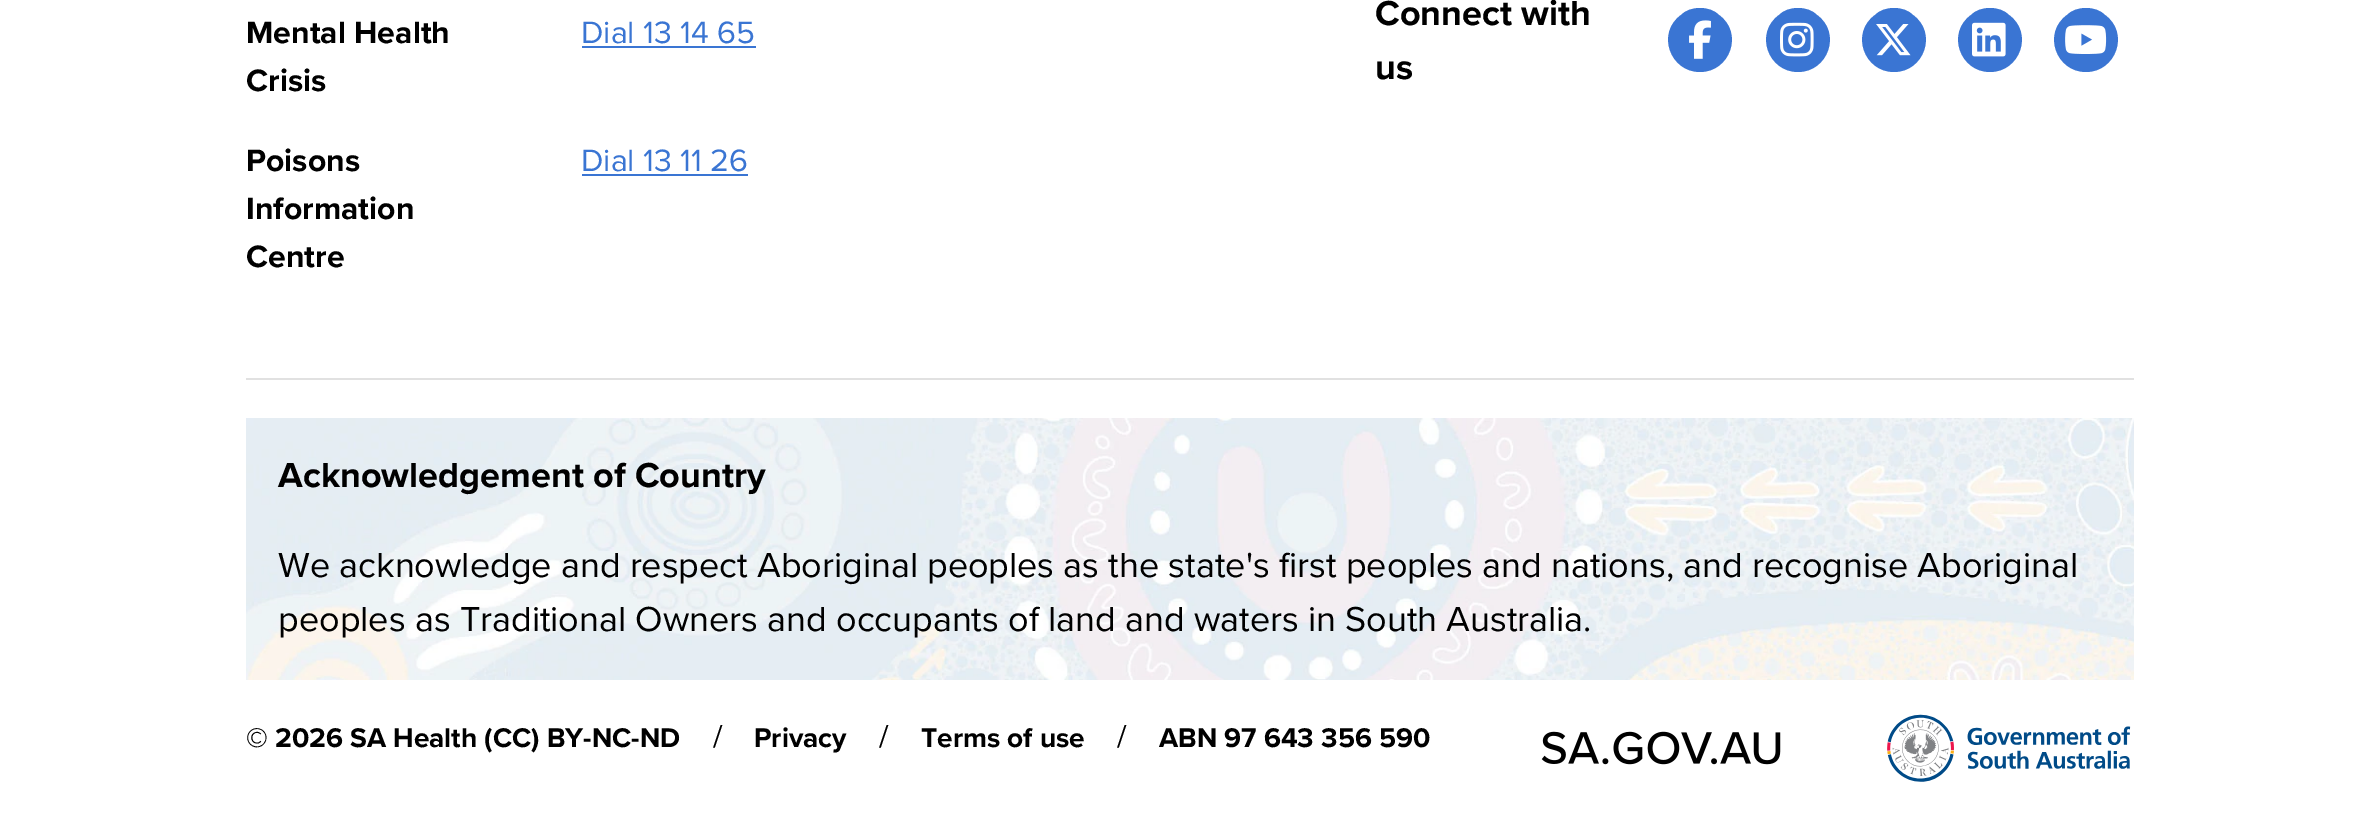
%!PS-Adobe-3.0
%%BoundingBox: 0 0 2379 835
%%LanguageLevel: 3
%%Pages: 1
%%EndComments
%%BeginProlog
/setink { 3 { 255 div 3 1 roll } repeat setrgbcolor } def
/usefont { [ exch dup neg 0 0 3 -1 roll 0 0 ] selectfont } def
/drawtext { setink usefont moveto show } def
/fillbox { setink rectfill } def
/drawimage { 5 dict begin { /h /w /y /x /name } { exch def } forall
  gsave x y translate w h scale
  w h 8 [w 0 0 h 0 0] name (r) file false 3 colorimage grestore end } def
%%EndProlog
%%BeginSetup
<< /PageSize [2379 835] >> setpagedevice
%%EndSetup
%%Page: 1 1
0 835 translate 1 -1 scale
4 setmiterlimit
0 0 2379 835 255 255 255 fillbox
(Mental Health) 246 43 /ProximaNova-Bold 32 0 0 0 drawtext
(Crisis) 246 91 /ProximaNova-Bold 32 0 0 0 drawtext
(Dial 13 14 65) 581 43 /ProximaNova-Regular 32 58 117 211 drawtext
582 46 174 2 58 117 211 fillbox
(Poisons) 246 171 /ProximaNova-Bold 32 0 0 0 drawtext
(Information) 246 219 /ProximaNova-Bold 32 0 0 0 drawtext
(Centre) 246 267 /ProximaNova-Bold 32 0 0 0 drawtext
(Dial 13 11 26) 581 171 /ProximaNova-Regular 32 58 117 211 drawtext
582 174 166 2 58 117 211 fillbox
(Connect with) 1375 25 /ProximaNova-Bold 36 0 0 0 drawtext
(us) 1375 79 /ProximaNova-Bold 36 0 0 0 drawtext
58 117 211 setink
1700 72 moveto 1730 72 1744 33 1719 15 curveto 1714 10 1707 8 1700 8 curveto 1693 8 1686 10 1681 15 curveto 1656 33 1670 72 1700 72 curveto closepath fill
(assets/img1.rgb) 1689 20 22 39 drawimage
1798 72 moveto 1828 72 1842 33 1817 15 curveto 1812 10 1805 8 1798 8 curveto 1791 8 1784 10 1779 15 curveto 1754 33 1768 72 1798 72 curveto closepath fill
(assets/img2.rgb) 1780 22 34 35 drawimage
1894 72 moveto 1924 72 1938 33 1913 15 curveto 1908 10 1901 8 1894 8 curveto 1887 8 1880 10 1875 15 curveto 1850 33 1864 72 1894 72 curveto closepath fill
(assets/img3.rgb) 1876 24 35 32 drawimage
1990 72 moveto 2020 72 2034 33 2009 15 curveto 2004 10 1997 8 1990 8 curveto 1983 8 1976 10 1971 15 curveto 1946 33 1960 72 1990 72 curveto closepath fill
(assets/img4.rgb) 1972 22 34 35 drawimage
2086 72 moveto 2116 72 2130 33 2105 15 curveto 2100 10 2093 8 2086 8 curveto 2079 8 2072 10 2067 15 curveto 2042 33 2056 72 2086 72 curveto closepath fill
(assets/img5.rgb) 2065 25 42 29 drawimage
246 378 1888 2 225 225 225 fillbox
(assets/img6.rgb) 246 418 1888 262 drawimage
(Acknowledgement of Country) 278 487 /ProximaNova-Bold 36 0 0 0 drawtext
(We acknowledge and respect Aboriginal peoples as the state's first peoples and nations, and recognise Aboriginal) 278 577 /ProximaNova-Regular 36 0 0 0 drawtext
(peoples as Traditional Owners and occupants of land and waters in South Australia.) 278 631 /ProximaNova-Regular 36 0 0 0 drawtext
(© 2026 SA Health \(CC\) BY-NC-ND) 246 747 /ProximaNova-Bold 28 0 0 0 drawtext
(/) 713 747 /ProximaNova-Regular 32 0 0 0 drawtext
(Privacy) 754 747 /ProximaNova-Bold 28 0 0 0 drawtext
(/) 879 747 /ProximaNova-Regular 32 0 0 0 drawtext
(Terms of use) 921 747 /ProximaNova-Bold 28 0 0 0 drawtext
(/) 1117 747 /ProximaNova-Regular 32 0 0 0 drawtext
(ABN 97 643 356 590) 1159 747 /ProximaNova-Bold 28 0 0 0 drawtext
(assets/img7.rgb) 1541 731 240 34 drawimage
(assets/img8.rgb) 1887 714 244 68 drawimage
showpage
%%EOF
